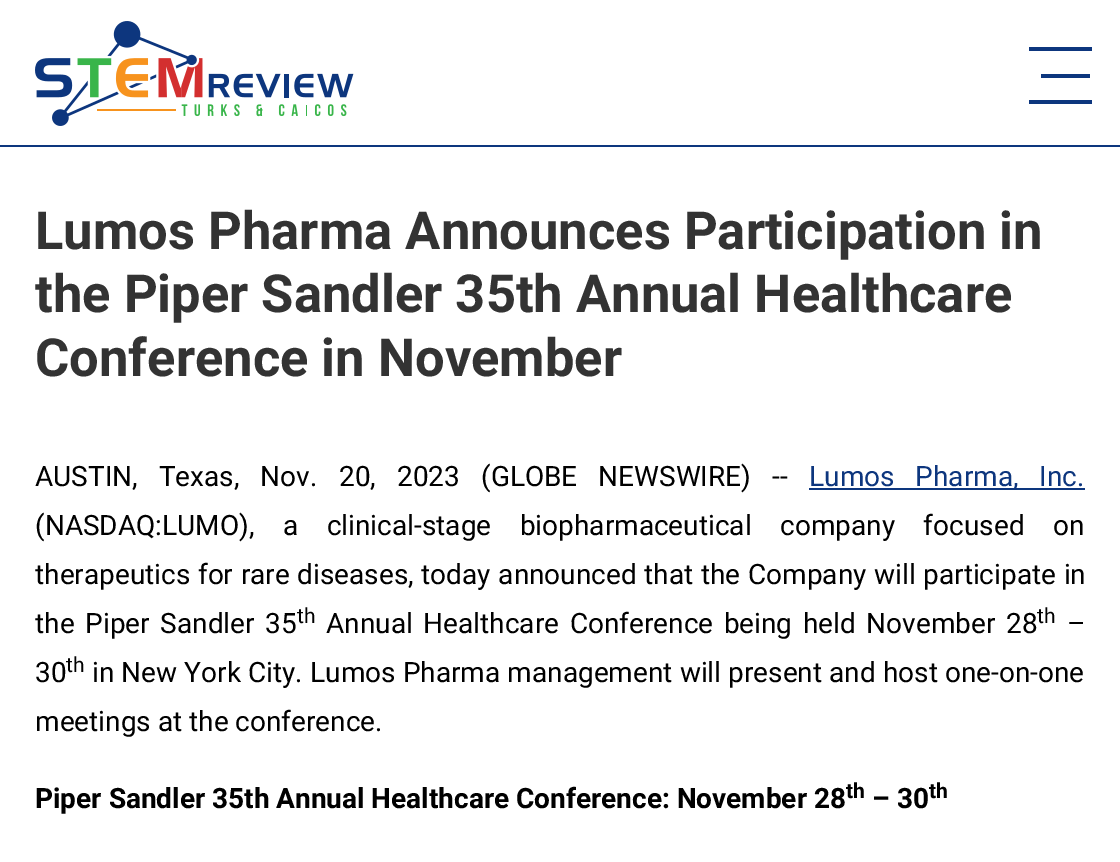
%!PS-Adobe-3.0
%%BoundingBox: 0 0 1120 862
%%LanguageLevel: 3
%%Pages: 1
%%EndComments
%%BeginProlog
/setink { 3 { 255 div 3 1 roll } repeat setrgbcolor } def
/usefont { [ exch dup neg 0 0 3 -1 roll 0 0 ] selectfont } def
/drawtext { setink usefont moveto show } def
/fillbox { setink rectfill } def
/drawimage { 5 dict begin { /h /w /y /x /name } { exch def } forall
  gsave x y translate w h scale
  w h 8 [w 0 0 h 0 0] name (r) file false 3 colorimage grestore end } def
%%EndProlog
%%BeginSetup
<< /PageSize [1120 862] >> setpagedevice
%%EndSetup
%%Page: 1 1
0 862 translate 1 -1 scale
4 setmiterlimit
0 0 1120 862 255 255 255 fillbox
(assets/img1.rgb) 35 21 319 105 drawimage
1029 47 63 4 13 54 126 fillbox
1041 74 49 4 13 54 126 fillbox
1029 100 63 4 13 54 126 fillbox
0 145 1120 2 13 54 126 fillbox
(Lumos Pharma Announces Participation in) 35 249 /Roboto-Bold 52.5 51 51 51 drawtext
(the Piper Sandler 35th Annual Healthcare) 35 312 /Roboto-Bold 52.5 51 51 51 drawtext
(Conference in November) 35 376 /Roboto-Bold 52.5 51 51 51 drawtext
/Roboto-Regular 28 usefont
0 0 0 setink
35 486 moveto 14 0 32 (AUSTIN, Texas, Nov.) widthshow
339 486 moveto 14 0 32 (20, 2023) widthshow
481 486 moveto 14 0 32 (\(GLOBE NEWSWIRE\) --) widthshow
809 488 276 2 13 54 126 fillbox
809 486 moveto 14 0 32 (Lumos Pharma, Inc.) widthshow
0 0 0 setink
35 535 moveto 21.75 0 32 (\(NASDAQ:LUMO\), a clinical-stage biopharmaceutical company focused on) widthshow
35 584 moveto 0.75 0 32 (therapeutics for rare diseases, today announced that the Company will participate in) widthshow
35 633 moveto 3.75 0 32 (the Piper Sandler 35) widthshow
(th) 297 623 /Roboto-Regular 21 0 0 0 drawtext
/Roboto-Regular 28 usefont
326 633 moveto 3.75 0 32 (Annual Healthcare Conference being held November 28) widthshow
(th) 1037 623 /Roboto-Regular 21 0 0 0 drawtext
(–) 1067 633 /Roboto-Regular 28 0 0 0 drawtext
(30) 35 682 /Roboto-Regular 28 0 0 0 drawtext
(th) 66 672 /Roboto-Regular 21 0 0 0 drawtext
/Roboto-Regular 28 usefont
92 682 moveto 0.25 0 32 (in New York City. Lumos Pharma management will present and host one-on-one) widthshow
(meetings at the conference.) 35 731 /Roboto-Regular 28 0 0 0 drawtext
(Piper Sandler 35th Annual Healthcare Conference: November 28) 35 808 /Roboto-Bold 28 0 0 0 drawtext
(th) 846 798 /Roboto-Bold 21 0 0 0 drawtext
(– 30) 872 808 /Roboto-Bold 28 0 0 0 drawtext
(th) 929 798 /Roboto-Bold 21 0 0 0 drawtext
showpage
%%EOF
